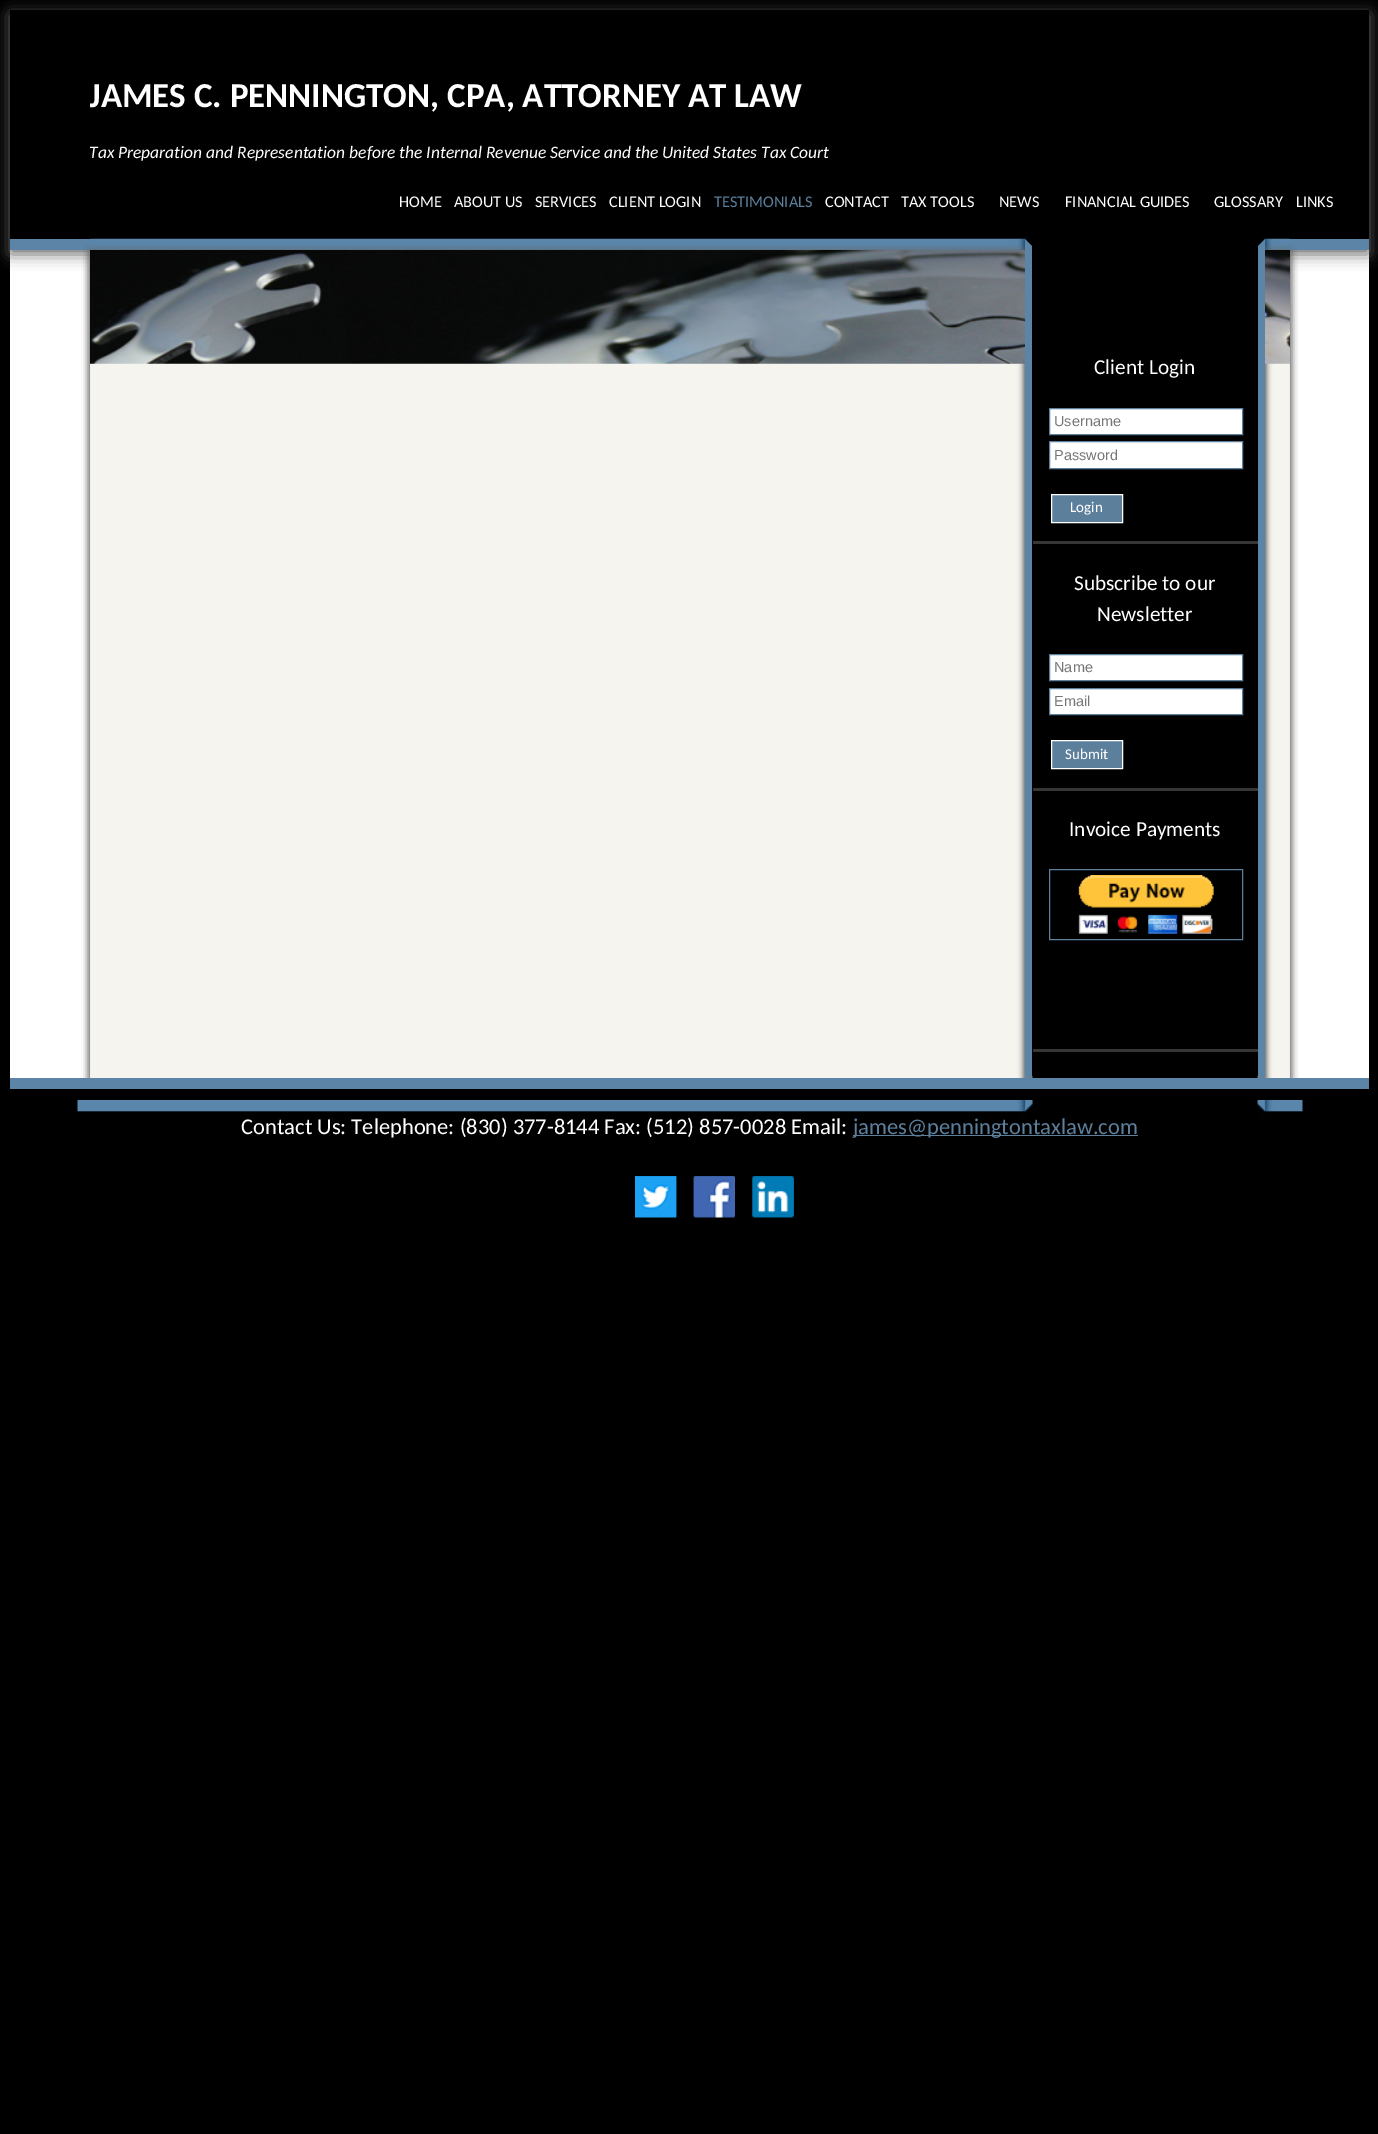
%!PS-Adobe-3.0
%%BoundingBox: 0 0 1378 2134
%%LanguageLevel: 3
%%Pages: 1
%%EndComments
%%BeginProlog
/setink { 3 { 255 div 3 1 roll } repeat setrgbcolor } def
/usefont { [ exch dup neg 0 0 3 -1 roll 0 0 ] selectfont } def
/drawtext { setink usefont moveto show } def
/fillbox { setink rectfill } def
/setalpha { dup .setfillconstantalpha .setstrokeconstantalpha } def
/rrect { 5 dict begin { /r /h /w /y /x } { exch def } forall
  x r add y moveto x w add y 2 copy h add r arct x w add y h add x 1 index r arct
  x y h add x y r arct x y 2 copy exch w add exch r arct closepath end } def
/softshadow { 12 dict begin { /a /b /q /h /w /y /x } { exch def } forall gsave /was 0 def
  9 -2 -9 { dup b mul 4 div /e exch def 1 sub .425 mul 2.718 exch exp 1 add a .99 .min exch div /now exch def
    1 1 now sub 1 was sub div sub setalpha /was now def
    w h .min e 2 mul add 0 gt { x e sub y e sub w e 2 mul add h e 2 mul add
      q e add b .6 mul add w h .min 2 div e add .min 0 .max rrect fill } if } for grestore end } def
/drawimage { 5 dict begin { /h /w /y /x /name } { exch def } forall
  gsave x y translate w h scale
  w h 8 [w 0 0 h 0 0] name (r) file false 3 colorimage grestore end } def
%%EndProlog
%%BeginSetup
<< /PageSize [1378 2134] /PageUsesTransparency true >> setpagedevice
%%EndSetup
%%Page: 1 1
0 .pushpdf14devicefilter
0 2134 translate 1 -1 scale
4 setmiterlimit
0 0 1378 2134 0 0 0 fillbox
10 250 1359 828 255 255 255 fillbox
(assets/img1.rgb) 83 250 1215 828 drawimage
102 102 102 setink
10 14 1359 240 0 7.5 1 softshadow
10 10 1359 229 0 0 0 fillbox
10 239 1359 11 91 132 167 fillbox
(assets/img2.rgb) 90 236 1200 14 drawimage
gsave
90 65 1200 63 rectclip
(JAMES C. PENNINGTON, CPA, ATTORNEY AT LAW) 89 107 /Carlito-Bold 35 255 255 255 drawtext
grestore
(Tax Preparation and Representation before the Internal Revenue Service and the United States Tax Court) 89 158 /Carlito-Italic 17.5 255 255 255 drawtext
(HOME) 399 207 /Carlito-Regular 16.25 255 255 255 drawtext
(ABOUT US) 454 207 /Carlito-Regular 16.25 255 255 255 drawtext
(SERVICES) 535 207 /Carlito-Regular 16.25 255 255 255 drawtext
(CLIENT LOGIN) 609 207 /Carlito-Regular 16.25 255 255 255 drawtext
(TESTIMONIALS) 714 207 /Carlito-Regular 16.25 92 127 156 drawtext
(CONTACT) 825 207 /Carlito-Regular 16.25 255 255 255 drawtext
(TAX TOOLS) 901 207 /Carlito-Regular 16.25 255 255 255 drawtext
(NEWS) 999 207 /Carlito-Regular 16.25 255 255 255 drawtext
(FINANCIAL GUIDES) 1065 207 /Carlito-Regular 16.25 255 255 255 drawtext
(GLOSSARY) 1214 207 /Carlito-Regular 16.25 255 255 255 drawtext
(LINKS) 1296 207 /Carlito-Regular 16.25 255 255 255 drawtext
gsave
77 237 moveto 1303 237 lineto 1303 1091 lineto 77 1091 lineto closepath 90 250 moveto 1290 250 lineto 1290 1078 lineto 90 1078 lineto closepath eoclip newpath
102 102 102 setink
90 250 1200 828 0 4 1 softshadow
grestore
(assets/img3.rgb) 90 250 1200 114 drawimage
1025 239 240 837 0 0 0 fillbox
91 132 167 setink
1265 239 moveto 1265 1076 lineto 1258 1076 lineto 1258 246 lineto closepath fill
1025 1076 moveto 1025 239 lineto 1032 246 lineto 1032 1076 lineto closepath fill
1033 541 225 3 54 54 54 fillbox
(Client Login) 1094 374 /Carlito-Regular 21.25 255 255 255 drawtext
1049.5 408.5 moveto 1242.5 408.5 lineto 1242.5 434.5 lineto 1049.5 434.5 lineto closepath gsave fill grestore
92 127 156 setink
stroke
(Username) 1054 426 /LiberationSans-Regular 14.5 117 117 117 drawtext
255 255 255 setink
1049.5 441.5 moveto 1242.5 441.5 lineto 1242.5 468.5 lineto 1049.5 468.5 lineto closepath gsave fill grestore
92 127 156 setink
stroke
(Password) 1054 460 /LiberationSans-Regular 14.5 117 117 117 drawtext
92 127 156 setink
1051.5 494.5 moveto 1122.5 494.5 lineto 1122.5 522.5 lineto 1051.5 522.5 lineto closepath gsave fill grestore
255 255 255 setink
stroke
(Login) 1070 512 /Carlito-Regular 15 255 255 255 drawtext
1033 788 225 3 54 54 54 fillbox
(Subscribe to our) 1074 590 /Carlito-Regular 21.25 255 255 255 drawtext
(Newsletter) 1097 621 /Carlito-Regular 21.25 255 255 255 drawtext
1049.5 654.5 moveto 1242.5 654.5 lineto 1242.5 680.5 lineto 1049.5 680.5 lineto closepath gsave fill grestore
92 127 156 setink
stroke
(Name) 1054 672 /LiberationSans-Regular 14.5 117 117 117 drawtext
255 255 255 setink
1049.5 688.5 moveto 1242.5 688.5 lineto 1242.5 714.5 lineto 1049.5 714.5 lineto closepath gsave fill grestore
92 127 156 setink
stroke
(Email) 1054 706 /LiberationSans-Regular 14.5 117 117 117 drawtext
92 127 156 setink
1051.5 740.5 moveto 1122.5 740.5 lineto 1122.5 768.5 lineto 1051.5 768.5 lineto closepath gsave fill grestore
255 255 255 setink
stroke
(Submit) 1065 759 /Carlito-Regular 15 255 255 255 drawtext
1033 1049 225 3 54 54 54 fillbox
(Invoice Payments) 1069 836 /Carlito-Regular 21.25 255 255 255 drawtext
92 127 156 setink
1049.5 869.5 193 70 rectstroke
(assets/img4.rgb) 1078 875 136 59 drawimage
10 1078 1359 11 91 132 167 fillbox
(assets/img5.rgb) 77 1100 1226 20 drawimage
(Contact Us: Telephone: \(830\) 377-8144 Fax: \(512\) 857-0028 Email:) 241 1134 /Carlito-Regular 22.5 255 255 255 drawtext
853 1135 285 1 92 127 156 fillbox
(james@penningtontaxlaw.com) 853 1134 /Carlito-Regular 22.5 92 127 156 drawtext
(assets/img6.rgb) 635 1176 42 41 drawimage
(assets/img7.rgb) 635 1176 42 42 drawimage
(assets/img8.rgb) 693 1176 42 41 drawimage
(assets/img9.rgb) 693 1176 42 42 drawimage
(assets/img10.rgb) 752 1176 42 41 drawimage
(assets/img11.rgb) 752 1176 42 42 drawimage
.poppdf14devicefilter showpage
%%EOF
